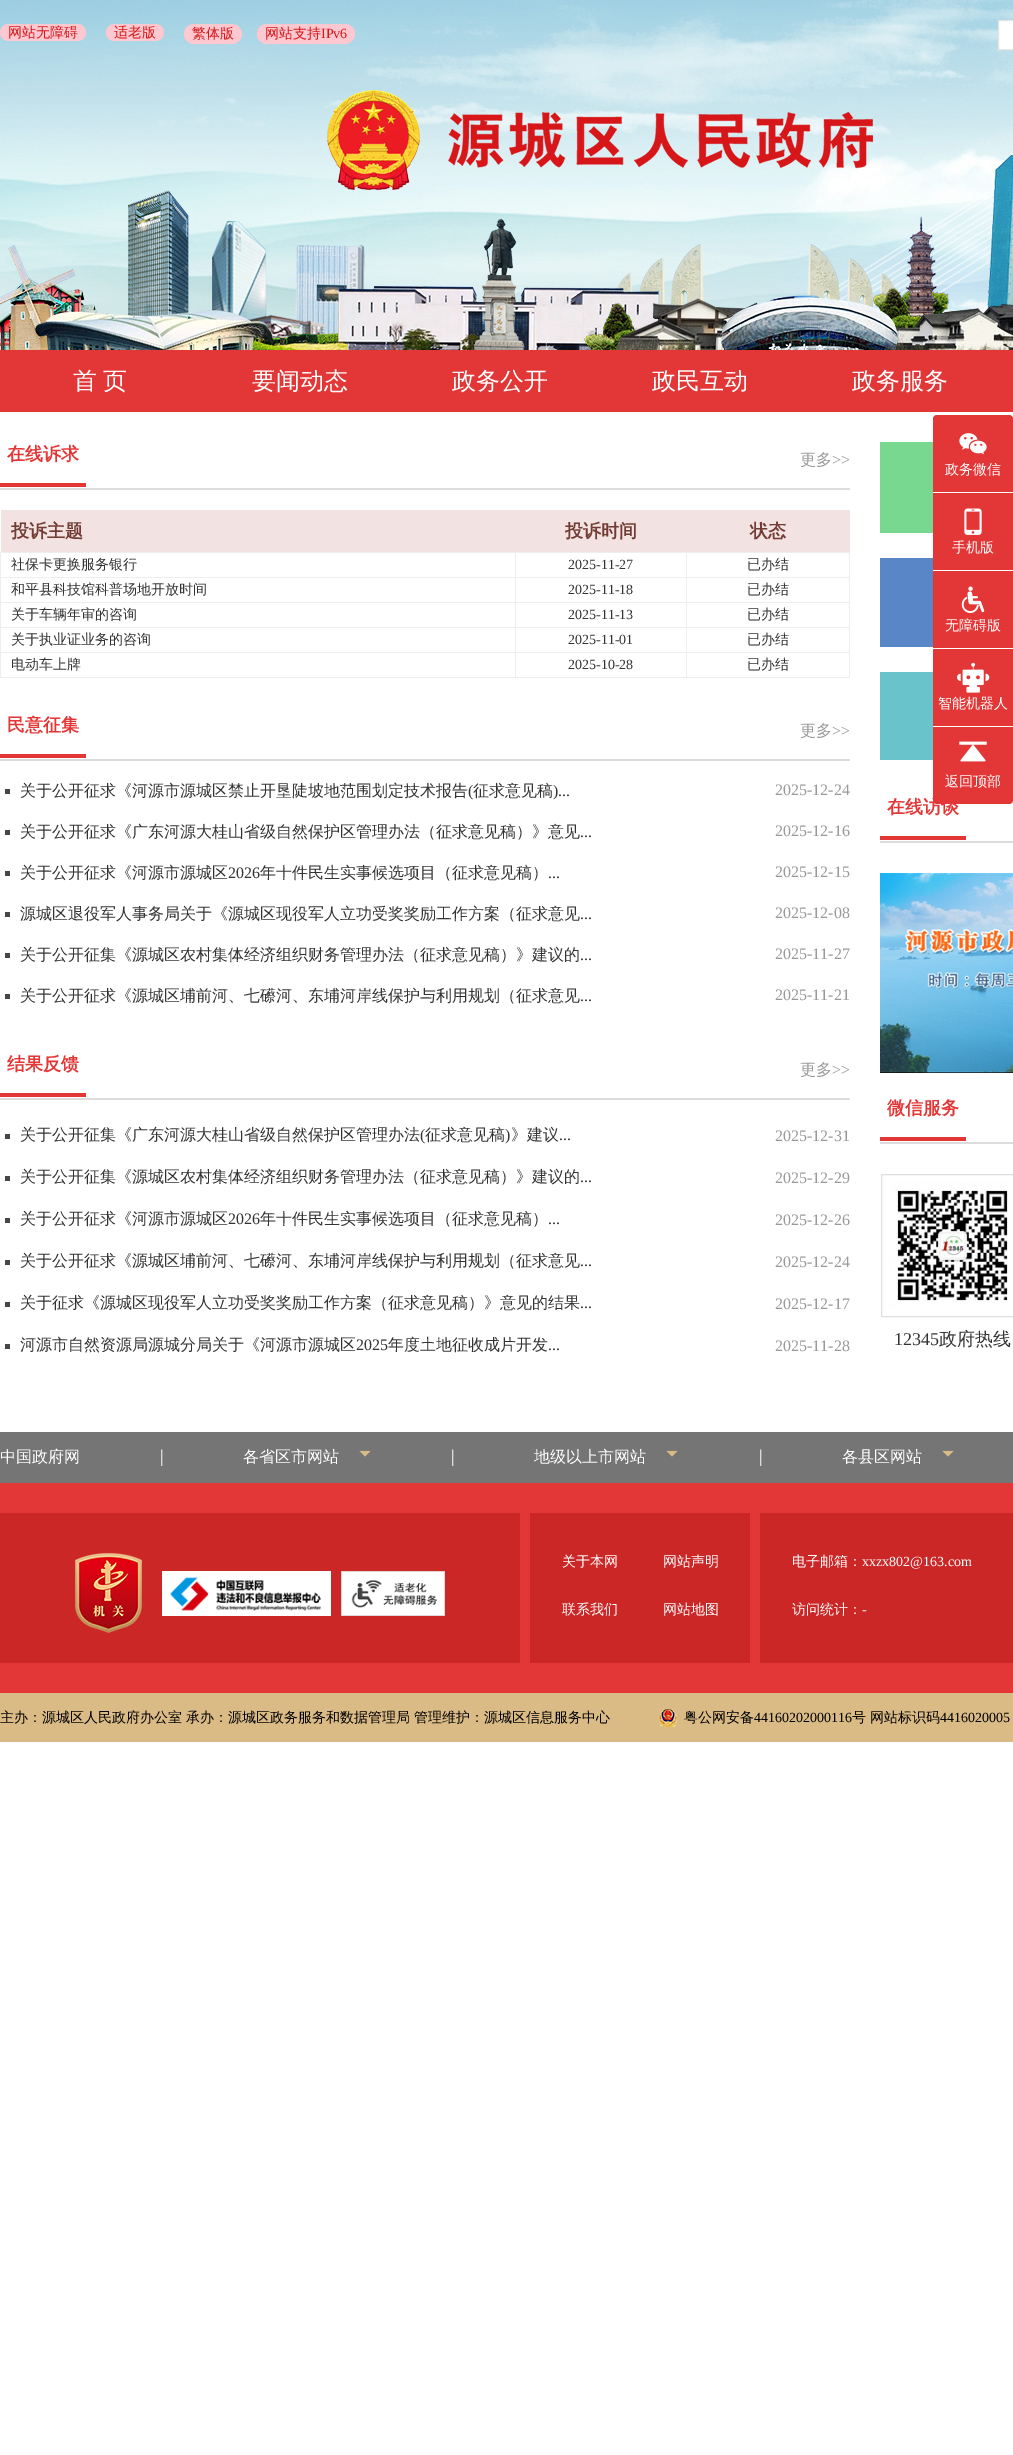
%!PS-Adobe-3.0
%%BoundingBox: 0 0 1013 2455
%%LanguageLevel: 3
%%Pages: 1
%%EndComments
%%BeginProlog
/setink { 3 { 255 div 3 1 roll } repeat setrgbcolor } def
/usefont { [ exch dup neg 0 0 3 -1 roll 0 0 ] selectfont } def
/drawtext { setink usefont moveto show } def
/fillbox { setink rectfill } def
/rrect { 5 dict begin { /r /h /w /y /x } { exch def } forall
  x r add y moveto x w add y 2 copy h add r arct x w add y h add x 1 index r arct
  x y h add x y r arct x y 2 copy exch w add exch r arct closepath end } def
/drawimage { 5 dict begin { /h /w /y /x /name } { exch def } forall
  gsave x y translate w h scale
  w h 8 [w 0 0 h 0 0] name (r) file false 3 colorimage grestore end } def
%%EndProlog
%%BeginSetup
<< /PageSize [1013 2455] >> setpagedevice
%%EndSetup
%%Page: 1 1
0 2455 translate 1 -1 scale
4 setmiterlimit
0 0 1013 2455 255 255 255 fillbox
(assets/img1.rgb) 0 0 1013 350 drawimage
253 200 207 setink
0 24 86 17 8.5 rrect fill
(网站无障碍) 8 37 /WenQuanYiZenHei-Medium 14 214 22 24 drawtext
253 200 207 setink
106 24 58 17 8.5 rrect fill
(适老版) 114 37 /WenQuanYiZenHei-Medium 14 214 22 24 drawtext
253 200 207 setink
184 24 58 20 10 rrect fill
(繁体版) 192 38 /WenQuanYiZenHei-Medium 14 214 22 24 drawtext
253 200 207 setink
257 24 98 20 10 rrect fill
(网站支持) 265 38 /WenQuanYiZenHei-Medium 14 214 22 24 drawtext
(IPv6) 321 38 /LiberationSerif-Regular 14 214 22 24 drawtext
255 255 255 setink
998.5 20.5 moveto 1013.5 20.5 lineto 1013.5 49.5 lineto 998.5 49.5 lineto closepath gsave fill grestore
229 229 229 setink
stroke
(assets/img2.rgb) 327 90 546 100 drawimage
0 350 1013 62 227 55 55 fillbox
(首) 73 389 /WenQuanYiZenHei-Medium 24 255 255 255 drawtext
(页) 103 389 /WenQuanYiZenHei-Medium 24 255 255 255 drawtext
(要闻动态) 252 389 /WenQuanYiZenHei-Medium 24 255 255 255 drawtext
(政务公开) 452 389 /WenQuanYiZenHei-Medium 24 255 255 255 drawtext
(政民互动) 652 389 /WenQuanYiZenHei-Medium 24 255 255 255 drawtext
(政务服务) 852 389 /WenQuanYiZenHei-Medium 24 255 255 255 drawtext
0 488 850 2 220 220 220 fillbox
(在线诉求) 7 460 /WenQuanYiZenHei-Bold 18 227 55 55 drawtext
0 483 86 4 227 55 55 fillbox
(更多) 800 465 /WenQuanYiZenHei-Medium 16 153 153 153 drawtext
(>>) 832 465 /LiberationSerif-Regular 16 153 153 153 drawtext
1 510 849 42 243 226 226 fillbox
(投诉主题) 11 537 /WenQuanYiZenHei-Bold 18 113 60 51 drawtext
(投诉时间) 565 537 /WenQuanYiZenHei-Bold 18 113 60 51 drawtext
(状态) 750 537 /WenQuanYiZenHei-Bold 18 113 60 51 drawtext
686 552 164 1 238 238 238 fillbox
686 577 164 1 238 238 238 fillbox
686 602 164 1 238 238 238 fillbox
686 627 164 1 238 238 238 fillbox
686 652 164 1 238 238 238 fillbox
849 652 1 26 238 238 238 fillbox
686 677 164 1 238 238 238 fillbox
686 652 1 26 238 238 238 fillbox
515 652 172 1 238 238 238 fillbox
686 627 1 26 238 238 238 fillbox
515 627 172 1 238 238 238 fillbox
686 602 1 26 238 238 238 fillbox
515 602 172 1 238 238 238 fillbox
686 577 1 26 238 238 238 fillbox
515 577 172 1 238 238 238 fillbox
686 552 1 26 238 238 238 fillbox
515 552 172 1 238 238 238 fillbox
515 677 172 1 238 238 238 fillbox
515 652 1 26 238 238 238 fillbox
0 652 516 1 238 238 238 fillbox
515 627 1 26 238 238 238 fillbox
0 627 516 1 238 238 238 fillbox
515 602 1 26 238 238 238 fillbox
0 602 516 1 238 238 238 fillbox
515 577 1 26 238 238 238 fillbox
0 577 516 1 238 238 238 fillbox
515 552 1 26 238 238 238 fillbox
0 552 516 1 238 238 238 fillbox
0 677 516 1 238 238 238 fillbox
0 652 1 26 238 238 238 fillbox
0 627 1 26 238 238 238 fillbox
0 602 1 26 238 238 238 fillbox
0 577 1 26 238 238 238 fillbox
0 552 1 26 238 238 238 fillbox
(社保卡更换服务银行) 11 569 /WenQuanYiZenHei-Medium 14 51 51 51 drawtext
(2025-11-27) 568 569 /LiberationSerif-Regular 14 51 51 51 drawtext
849 627 1 26 238 238 238 fillbox
849 602 1 26 238 238 238 fillbox
849 577 1 26 238 238 238 fillbox
849 552 1 26 238 238 238 fillbox
(已办结) 747 569 /WenQuanYiZenHei-Medium 14 51 51 51 drawtext
(和平县科技馆科普场地开放时间) 11 594 /WenQuanYiZenHei-Medium 14 51 51 51 drawtext
(2025-11-18) 568 594 /LiberationSerif-Regular 14 51 51 51 drawtext
(已办结) 747 594 /WenQuanYiZenHei-Medium 14 51 51 51 drawtext
(关于车辆年审的咨询) 11 619 /WenQuanYiZenHei-Medium 14 51 51 51 drawtext
(2025-11-13) 568 619 /LiberationSerif-Regular 14 51 51 51 drawtext
(已办结) 747 619 /WenQuanYiZenHei-Medium 14 51 51 51 drawtext
(关于执业证业务的咨询) 11 644 /WenQuanYiZenHei-Medium 14 51 51 51 drawtext
(2025-11-01) 568 644 /LiberationSerif-Regular 14 51 51 51 drawtext
(已办结) 747 644 /WenQuanYiZenHei-Medium 14 51 51 51 drawtext
(电动车上牌) 11 669 /WenQuanYiZenHei-Medium 14 51 51 51 drawtext
(2025-10-28) 568 669 /LiberationSerif-Regular 14 51 51 51 drawtext
(已办结) 747 669 /WenQuanYiZenHei-Medium 14 51 51 51 drawtext
0 759 850 2 220 220 220 fillbox
(民意征集) 7 731 /WenQuanYiZenHei-Bold 18 227 55 55 drawtext
0 754 86 4 227 55 55 fillbox
(更多) 800 736 /WenQuanYiZenHei-Medium 16 153 153 153 drawtext
(>>) 832 736 /LiberationSerif-Regular 16 153 153 153 drawtext
5 789 5 5 71 71 71 fillbox
(关于公开征求《河源市源城区禁止开垦陡坡地范围划定技术报告) 20 796 /WenQuanYiZenHei-Medium 16 51 51 51 drawtext
(\() 468 796 /LiberationSerif-Regular 16 51 51 51 drawtext
(征求意见稿) 473 796 /WenQuanYiZenHei-Medium 16 51 51 51 drawtext
(\)...) 553 796 /LiberationSerif-Regular 16 51 51 51 drawtext
(2025-12-24) 775 795 /LiberationSerif-Regular 16 153 153 153 drawtext
5 830 5 5 71 71 71 fillbox
(关于公开征求《广东河源大桂山省级自然保护区管理办法（征求意见稿）》意见) 20 837 /WenQuanYiZenHei-Medium 16 51 51 51 drawtext
(...) 580 837 /LiberationSerif-Regular 16 51 51 51 drawtext
(2025-12-16) 775 836 /LiberationSerif-Regular 16 153 153 153 drawtext
5 871 5 5 71 71 71 fillbox
(关于公开征求《河源市源城区) 20 878 /WenQuanYiZenHei-Medium 16 51 51 51 drawtext
(2026) 228 878 /LiberationSerif-Regular 16 51 51 51 drawtext
(年十件民生实事候选项目（征求意见稿）) 260 878 /WenQuanYiZenHei-Medium 16 51 51 51 drawtext
(...) 548 878 /LiberationSerif-Regular 16 51 51 51 drawtext
(2025-12-15) 775 877 /LiberationSerif-Regular 16 153 153 153 drawtext
5 912 5 5 71 71 71 fillbox
(源城区退役军人事务局关于《源城区现役军人立功受奖奖励工作方案（征求意见) 20 919 /WenQuanYiZenHei-Medium 16 51 51 51 drawtext
(...) 580 919 /LiberationSerif-Regular 16 51 51 51 drawtext
(2025-12-08) 775 918 /LiberationSerif-Regular 16 153 153 153 drawtext
5 953 5 5 71 71 71 fillbox
(关于公开征集《源城区农村集体经济组织财务管理办法（征求意见稿）》建议的) 20 960 /WenQuanYiZenHei-Medium 16 51 51 51 drawtext
(...) 580 960 /LiberationSerif-Regular 16 51 51 51 drawtext
(2025-11-27) 775 959 /LiberationSerif-Regular 16 153 153 153 drawtext
5 994 5 5 71 71 71 fillbox
(关于公开征求《源城区埔前河、七礤河、东埔河岸线保护与利用规划（征求意见) 20 1001 /WenQuanYiZenHei-Medium 16 51 51 51 drawtext
(...) 580 1001 /LiberationSerif-Regular 16 51 51 51 drawtext
(2025-11-21) 775 1000 /LiberationSerif-Regular 16 153 153 153 drawtext
0 1098 850 2 220 220 220 fillbox
(结果反馈) 7 1070 /WenQuanYiZenHei-Bold 18 227 55 55 drawtext
0 1093 86 4 227 55 55 fillbox
(更多) 800 1075 /WenQuanYiZenHei-Medium 16 153 153 153 drawtext
(>>) 832 1075 /LiberationSerif-Regular 16 153 153 153 drawtext
5 1134 5 5 71 71 71 fillbox
(关于公开征集《广东河源大桂山省级自然保护区管理办法) 20 1140 /WenQuanYiZenHei-Medium 16 51 51 51 drawtext
(\() 420 1140 /LiberationSerif-Regular 16 51 51 51 drawtext
(征求意见稿) 425 1140 /WenQuanYiZenHei-Medium 16 51 51 51 drawtext
(\)) 505 1140 /LiberationSerif-Regular 16 51 51 51 drawtext
(》建议) 511 1140 /WenQuanYiZenHei-Medium 16 51 51 51 drawtext
(...) 559 1140 /LiberationSerif-Regular 16 51 51 51 drawtext
(2025-12-31) 775 1141 /LiberationSerif-Regular 16 153 153 153 drawtext
5 1176 5 5 71 71 71 fillbox
(关于公开征集《源城区农村集体经济组织财务管理办法（征求意见稿）》建议的) 20 1182 /WenQuanYiZenHei-Medium 16 51 51 51 drawtext
(...) 580 1182 /LiberationSerif-Regular 16 51 51 51 drawtext
(2025-12-29) 775 1183 /LiberationSerif-Regular 16 153 153 153 drawtext
5 1218 5 5 71 71 71 fillbox
(关于公开征求《河源市源城区) 20 1224 /WenQuanYiZenHei-Medium 16 51 51 51 drawtext
(2026) 228 1224 /LiberationSerif-Regular 16 51 51 51 drawtext
(年十件民生实事候选项目（征求意见稿）) 260 1224 /WenQuanYiZenHei-Medium 16 51 51 51 drawtext
(...) 548 1224 /LiberationSerif-Regular 16 51 51 51 drawtext
(2025-12-26) 775 1225 /LiberationSerif-Regular 16 153 153 153 drawtext
5 1260 5 5 71 71 71 fillbox
(关于公开征求《源城区埔前河、七礤河、东埔河岸线保护与利用规划（征求意见) 20 1266 /WenQuanYiZenHei-Medium 16 51 51 51 drawtext
(...) 580 1266 /LiberationSerif-Regular 16 51 51 51 drawtext
(2025-12-24) 775 1267 /LiberationSerif-Regular 16 153 153 153 drawtext
5 1302 5 5 71 71 71 fillbox
(关于征求《源城区现役军人立功受奖奖励工作方案（征求意见稿）》意见的结果) 20 1308 /WenQuanYiZenHei-Medium 16 51 51 51 drawtext
(...) 580 1308 /LiberationSerif-Regular 16 51 51 51 drawtext
(2025-12-17) 775 1309 /LiberationSerif-Regular 16 153 153 153 drawtext
5 1344 5 5 71 71 71 fillbox
(河源市自然资源局源城分局关于《河源市源城区) 20 1350 /WenQuanYiZenHei-Medium 16 51 51 51 drawtext
(2025) 356 1350 /LiberationSerif-Regular 16 51 51 51 drawtext
(年度土地征收成片开发) 388 1350 /WenQuanYiZenHei-Medium 16 51 51 51 drawtext
(...) 548 1350 /LiberationSerif-Regular 16 51 51 51 drawtext
(2025-11-28) 775 1351 /LiberationSerif-Regular 16 153 153 153 drawtext
880 442 53 91 120 216 143 fillbox
880 558 53 89 88 134 198 fillbox
880 672 53 88 105 195 202 fillbox
880 841 133 2 220 220 220 fillbox
(在线访谈) 887 813 /WenQuanYiZenHei-Bold 18 227 55 55 drawtext
880 836 86 4 227 55 55 fillbox
(assets/img3.rgb) 880 873 133 200 drawimage
880 1142 133 2 220 220 220 fillbox
(微信服务) 887 1114 /WenQuanYiZenHei-Bold 18 227 55 55 drawtext
880 1137 86 4 227 55 55 fillbox
223 223 223 setink
881.5 1174.5 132 142 rectstroke
(assets/img4.rgb) 890 1183 118 125 drawimage
(12345) 894 1345 /LiberationSerif-Regular 18 51 51 51 drawtext
(政府热线) 939 1345 /WenQuanYiZenHei-Medium 18 51 51 51 drawtext
227 55 55 setink
933 415 80 389 4 rrect fill
933 492 80 1 255 255 255 fillbox
(assets/img5.rgb) 959 433 28 22 drawimage
(政务微信) 945 474 /WenQuanYiZenHei-Medium 14 255 255 255 drawtext
933 570 80 1 255 255 255 fillbox
(assets/img6.rgb) 964 508 18 27 drawimage
(手机版) 952 552 /WenQuanYiZenHei-Medium 14 255 255 255 drawtext
933 648 80 1 255 255 255 fillbox
(assets/img7.rgb) 961 586 24 27 drawimage
(无障碍版) 945 630 /WenQuanYiZenHei-Medium 14 255 255 255 drawtext
933 726 80 1 255 255 255 fillbox
(assets/img8.rgb) 957 662 33 31 drawimage
(智能机器人) 938 708 /WenQuanYiZenHei-Medium 14 255 255 255 drawtext
(assets/img9.rgb) 959 741 28 21 drawimage
(返回顶部) 945 786 /WenQuanYiZenHei-Medium 14 255 255 255 drawtext
0 1432 1013 51 117 117 117 fillbox
(中国政府网) 0 1462 /WenQuanYiZenHei-Medium 16 255 255 255 drawtext
(|) 160 1462 /LiberationSerif-Regular 18 255 255 255 drawtext
(各省区市网站) 243 1462 /WenQuanYiZenHei-Medium 16 255 255 255 drawtext
(assets/img10.rgb) 359 1450 12 7 drawimage
(|) 451 1462 /LiberationSerif-Regular 18 255 255 255 drawtext
(地级以上市网站) 534 1462 /WenQuanYiZenHei-Medium 16 255 255 255 drawtext
(assets/img10.rgb) 666 1450 12 7 drawimage
(|) 759 1462 /LiberationSerif-Regular 18 255 255 255 drawtext
(各县区网站) 842 1462 /WenQuanYiZenHei-Medium 16 255 255 255 drawtext
(assets/img10.rgb) 942 1450 12 7 drawimage
0 1483 1013 210 227 55 55 fillbox
0 1513 520 150 203 39 39 fillbox
(assets/img11.rgb) 75 1553 67 80 drawimage
(assets/img12.rgb) 162 1571 169 45 drawimage
(assets/img13.rgb) 341 1571 104 45 drawimage
530 1513 220 150 203 39 39 fillbox
(关于本网) 562 1566 /WenQuanYiZenHei-Medium 14 255 255 255 drawtext
(网站声明) 663 1566 /WenQuanYiZenHei-Medium 14 255 255 255 drawtext
(联系我们) 562 1614 /WenQuanYiZenHei-Medium 14 255 255 255 drawtext
(网站地图) 663 1614 /WenQuanYiZenHei-Medium 14 255 255 255 drawtext
760 1513 253 150 203 39 39 fillbox
(电子邮箱：) 792 1566 /WenQuanYiZenHei-Medium 14 255 255 255 drawtext
(xxzx802@163.com) 862 1566 /LiberationSerif-Regular 14 255 255 255 drawtext
(访问统计：) 792 1614 /WenQuanYiZenHei-Medium 14 255 255 255 drawtext
(-) 862 1614 /LiberationSerif-Regular 14 255 255 255 drawtext
0 1693 1013 49 218 187 133 fillbox
(主办：源城区人民政府办公室 承办：源城区政务服务和数据管理局 管理维护：源城区信息服务中心) 0 1722 /WenQuanYiZenHei-Medium 14 0 0 0 drawtext
(assets/img14.rgb) 659 1709 18 18 drawimage
(粤公网安备) 684 1722 /WenQuanYiZenHei-Medium 14 0 0 0 drawtext
(44160202000116) 754 1722 /LiberationSerif-Regular 14 0 0 0 drawtext
(号 网站标识码) 852 1722 /WenQuanYiZenHei-Medium 14 0 0 0 drawtext
(4416020005) 940 1722 /LiberationSerif-Regular 14 0 0 0 drawtext
showpage
%%EOF
